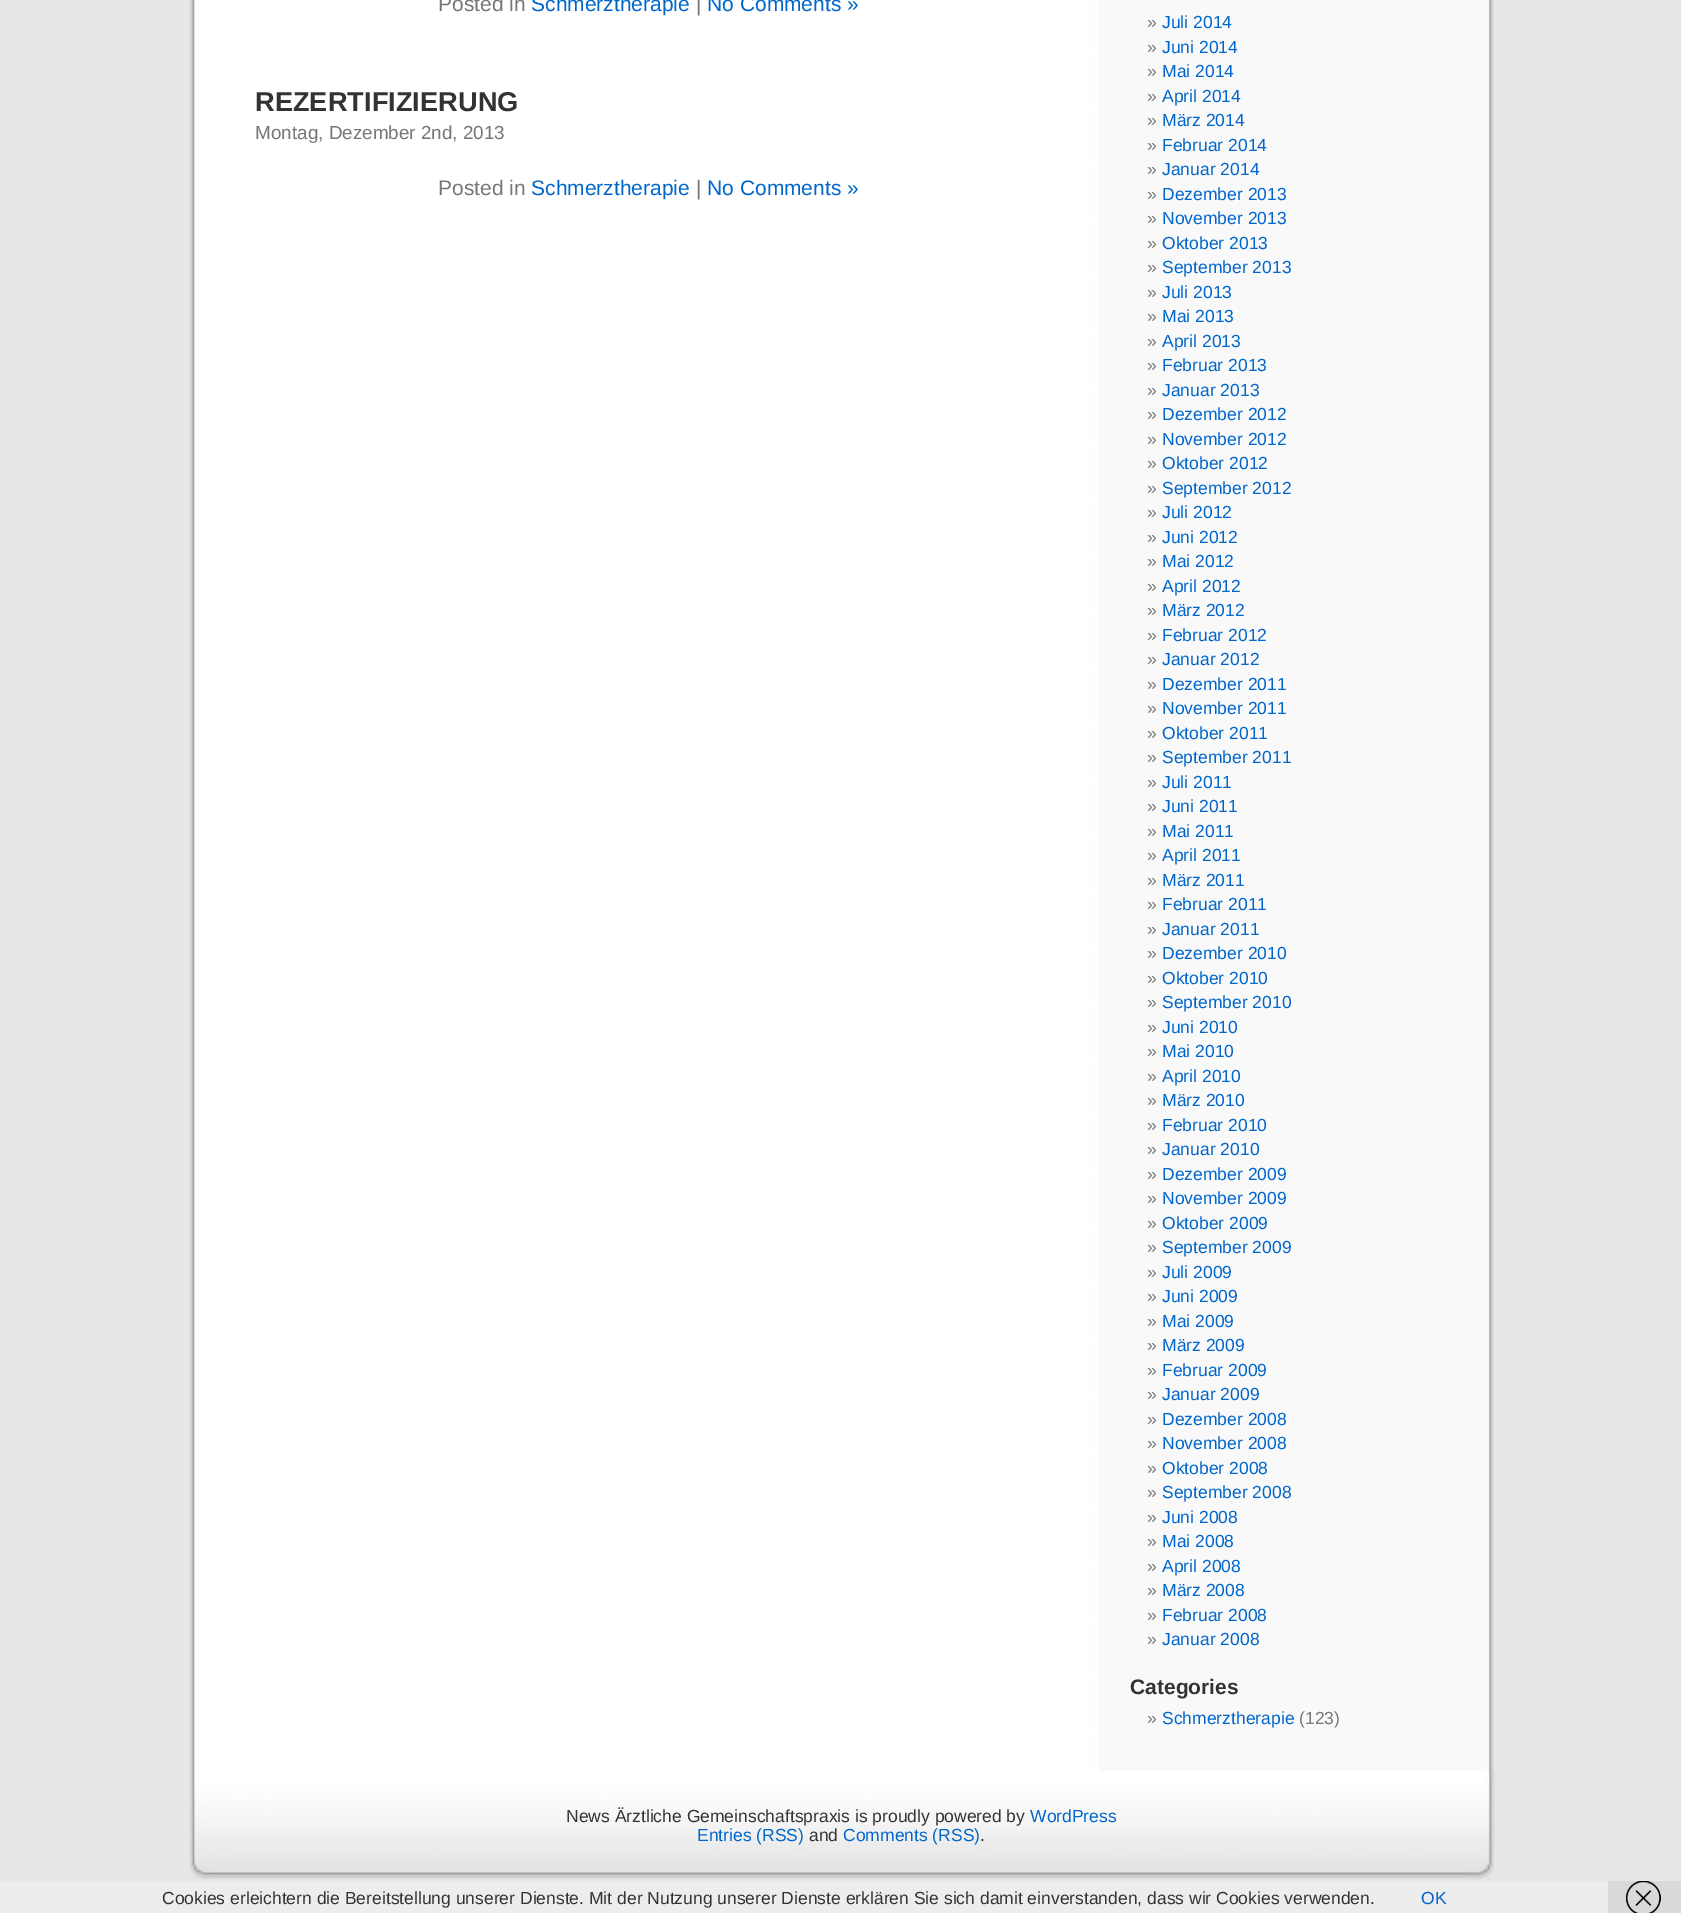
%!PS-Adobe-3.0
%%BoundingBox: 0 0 1681 1913
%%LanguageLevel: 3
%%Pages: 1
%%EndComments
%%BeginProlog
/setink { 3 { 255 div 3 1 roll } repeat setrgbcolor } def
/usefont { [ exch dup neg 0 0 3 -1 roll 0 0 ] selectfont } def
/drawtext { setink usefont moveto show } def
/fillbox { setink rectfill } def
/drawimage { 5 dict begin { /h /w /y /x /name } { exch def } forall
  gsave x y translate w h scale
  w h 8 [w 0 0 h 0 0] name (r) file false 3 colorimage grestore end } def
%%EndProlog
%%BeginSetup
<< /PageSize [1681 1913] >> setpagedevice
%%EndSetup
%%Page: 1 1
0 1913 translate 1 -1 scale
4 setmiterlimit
0 0 1681 1913 231 231 231 fillbox
(assets/img1.rgb) 189 0 1305 1771 drawimage
(Posted in) 438 11 /LiberationSans-Regular 21 119 119 119 drawtext
(Schmerztherapie) 531 11 /LiberationSans-Regular 21 0 102 204 drawtext
(|) 696 11 /LiberationSans-Regular 21 119 119 119 drawtext
(No Comments ») 707 11 /LiberationSans-Regular 21 0 102 204 drawtext
(REZERTIFIZIERUNG) 255 111 /LiberationSans-Bold 27.25 51 51 51 drawtext
(Montag, Dezember 2nd, 2013) 255 139 /LiberationSans-Regular 18.9 119 119 119 drawtext
(Posted in) 438 195 /LiberationSans-Regular 21 119 119 119 drawtext
(Schmerztherapie) 531 195 /LiberationSans-Regular 21 0 102 204 drawtext
(|) 696 195 /LiberationSans-Regular 21 119 119 119 drawtext
(No Comments ») 707 195 /LiberationSans-Regular 21 0 102 204 drawtext
(») 1147 28 /LiberationSans-Regular 17.5 119 119 119 drawtext
(Juli 2014) 1162 28 /LiberationSans-Regular 17.5 0 102 204 drawtext
(») 1147 53 /LiberationSans-Regular 17.5 119 119 119 drawtext
(Juni 2014) 1162 53 /LiberationSans-Regular 17.5 0 102 204 drawtext
(») 1147 77 /LiberationSans-Regular 17.5 119 119 119 drawtext
(Mai 2014) 1162 77 /LiberationSans-Regular 17.5 0 102 204 drawtext
(») 1147 102 /LiberationSans-Regular 17.5 119 119 119 drawtext
(April 2014) 1162 102 /LiberationSans-Regular 17.5 0 102 204 drawtext
(») 1147 126 /LiberationSans-Regular 17.5 119 119 119 drawtext
(März 2014) 1162 126 /LiberationSans-Regular 17.5 0 102 204 drawtext
(») 1147 151 /LiberationSans-Regular 17.5 119 119 119 drawtext
(Februar 2014) 1162 151 /LiberationSans-Regular 17.5 0 102 204 drawtext
(») 1147 175 /LiberationSans-Regular 17.5 119 119 119 drawtext
(Januar 2014) 1162 175 /LiberationSans-Regular 17.5 0 102 204 drawtext
(») 1147 200 /LiberationSans-Regular 17.5 119 119 119 drawtext
(Dezember 2013) 1162 200 /LiberationSans-Regular 17.5 0 102 204 drawtext
(») 1147 224 /LiberationSans-Regular 17.5 119 119 119 drawtext
(November 2013) 1162 224 /LiberationSans-Regular 17.5 0 102 204 drawtext
(») 1147 249 /LiberationSans-Regular 17.5 119 119 119 drawtext
(Oktober 2013) 1162 249 /LiberationSans-Regular 17.5 0 102 204 drawtext
(») 1147 273 /LiberationSans-Regular 17.5 119 119 119 drawtext
(September 2013) 1162 273 /LiberationSans-Regular 17.5 0 102 204 drawtext
(») 1147 298 /LiberationSans-Regular 17.5 119 119 119 drawtext
(Juli 2013) 1162 298 /LiberationSans-Regular 17.5 0 102 204 drawtext
(») 1147 322 /LiberationSans-Regular 17.5 119 119 119 drawtext
(Mai 2013) 1162 322 /LiberationSans-Regular 17.5 0 102 204 drawtext
(») 1147 347 /LiberationSans-Regular 17.5 119 119 119 drawtext
(April 2013) 1162 347 /LiberationSans-Regular 17.5 0 102 204 drawtext
(») 1147 371 /LiberationSans-Regular 17.5 119 119 119 drawtext
(Februar 2013) 1162 371 /LiberationSans-Regular 17.5 0 102 204 drawtext
(») 1147 396 /LiberationSans-Regular 17.5 119 119 119 drawtext
(Januar 2013) 1162 396 /LiberationSans-Regular 17.5 0 102 204 drawtext
(») 1147 420 /LiberationSans-Regular 17.5 119 119 119 drawtext
(Dezember 2012) 1162 420 /LiberationSans-Regular 17.5 0 102 204 drawtext
(») 1147 445 /LiberationSans-Regular 17.5 119 119 119 drawtext
(November 2012) 1162 445 /LiberationSans-Regular 17.5 0 102 204 drawtext
(») 1147 469 /LiberationSans-Regular 17.5 119 119 119 drawtext
(Oktober 2012) 1162 469 /LiberationSans-Regular 17.5 0 102 204 drawtext
(») 1147 494 /LiberationSans-Regular 17.5 119 119 119 drawtext
(September 2012) 1162 494 /LiberationSans-Regular 17.5 0 102 204 drawtext
(») 1147 518 /LiberationSans-Regular 17.5 119 119 119 drawtext
(Juli 2012) 1162 518 /LiberationSans-Regular 17.5 0 102 204 drawtext
(») 1147 543 /LiberationSans-Regular 17.5 119 119 119 drawtext
(Juni 2012) 1162 543 /LiberationSans-Regular 17.5 0 102 204 drawtext
(») 1147 567 /LiberationSans-Regular 17.5 119 119 119 drawtext
(Mai 2012) 1162 567 /LiberationSans-Regular 17.5 0 102 204 drawtext
(») 1147 592 /LiberationSans-Regular 17.5 119 119 119 drawtext
(April 2012) 1162 592 /LiberationSans-Regular 17.5 0 102 204 drawtext
(») 1147 616 /LiberationSans-Regular 17.5 119 119 119 drawtext
(März 2012) 1162 616 /LiberationSans-Regular 17.5 0 102 204 drawtext
(») 1147 641 /LiberationSans-Regular 17.5 119 119 119 drawtext
(Februar 2012) 1162 641 /LiberationSans-Regular 17.5 0 102 204 drawtext
(») 1147 665 /LiberationSans-Regular 17.5 119 119 119 drawtext
(Januar 2012) 1162 665 /LiberationSans-Regular 17.5 0 102 204 drawtext
(») 1147 690 /LiberationSans-Regular 17.5 119 119 119 drawtext
(Dezember 2011) 1162 690 /LiberationSans-Regular 17.5 0 102 204 drawtext
(») 1147 714 /LiberationSans-Regular 17.5 119 119 119 drawtext
(November 2011) 1162 714 /LiberationSans-Regular 17.5 0 102 204 drawtext
(») 1147 739 /LiberationSans-Regular 17.5 119 119 119 drawtext
(Oktober 2011) 1162 739 /LiberationSans-Regular 17.5 0 102 204 drawtext
(») 1147 763 /LiberationSans-Regular 17.5 119 119 119 drawtext
(September 2011) 1162 763 /LiberationSans-Regular 17.5 0 102 204 drawtext
(») 1147 788 /LiberationSans-Regular 17.5 119 119 119 drawtext
(Juli 2011) 1162 788 /LiberationSans-Regular 17.5 0 102 204 drawtext
(») 1147 812 /LiberationSans-Regular 17.5 119 119 119 drawtext
(Juni 2011) 1162 812 /LiberationSans-Regular 17.5 0 102 204 drawtext
(») 1147 837 /LiberationSans-Regular 17.5 119 119 119 drawtext
(Mai 2011) 1162 837 /LiberationSans-Regular 17.5 0 102 204 drawtext
(») 1147 861 /LiberationSans-Regular 17.5 119 119 119 drawtext
(April 2011) 1162 861 /LiberationSans-Regular 17.5 0 102 204 drawtext
(») 1147 886 /LiberationSans-Regular 17.5 119 119 119 drawtext
(März 2011) 1162 886 /LiberationSans-Regular 17.5 0 102 204 drawtext
(») 1147 910 /LiberationSans-Regular 17.5 119 119 119 drawtext
(Februar 2011) 1162 910 /LiberationSans-Regular 17.5 0 102 204 drawtext
(») 1147 935 /LiberationSans-Regular 17.5 119 119 119 drawtext
(Januar 2011) 1162 935 /LiberationSans-Regular 17.5 0 102 204 drawtext
(») 1147 959 /LiberationSans-Regular 17.5 119 119 119 drawtext
(Dezember 2010) 1162 959 /LiberationSans-Regular 17.5 0 102 204 drawtext
(») 1147 984 /LiberationSans-Regular 17.5 119 119 119 drawtext
(Oktober 2010) 1162 984 /LiberationSans-Regular 17.5 0 102 204 drawtext
(») 1147 1008 /LiberationSans-Regular 17.5 119 119 119 drawtext
(September 2010) 1162 1008 /LiberationSans-Regular 17.5 0 102 204 drawtext
(») 1147 1033 /LiberationSans-Regular 17.5 119 119 119 drawtext
(Juni 2010) 1162 1033 /LiberationSans-Regular 17.5 0 102 204 drawtext
(») 1147 1057 /LiberationSans-Regular 17.5 119 119 119 drawtext
(Mai 2010) 1162 1057 /LiberationSans-Regular 17.5 0 102 204 drawtext
(») 1147 1082 /LiberationSans-Regular 17.5 119 119 119 drawtext
(April 2010) 1162 1082 /LiberationSans-Regular 17.5 0 102 204 drawtext
(») 1147 1106 /LiberationSans-Regular 17.5 119 119 119 drawtext
(März 2010) 1162 1106 /LiberationSans-Regular 17.5 0 102 204 drawtext
(») 1147 1131 /LiberationSans-Regular 17.5 119 119 119 drawtext
(Februar 2010) 1162 1131 /LiberationSans-Regular 17.5 0 102 204 drawtext
(») 1147 1155 /LiberationSans-Regular 17.5 119 119 119 drawtext
(Januar 2010) 1162 1155 /LiberationSans-Regular 17.5 0 102 204 drawtext
(») 1147 1180 /LiberationSans-Regular 17.5 119 119 119 drawtext
(Dezember 2009) 1162 1180 /LiberationSans-Regular 17.5 0 102 204 drawtext
(») 1147 1204 /LiberationSans-Regular 17.5 119 119 119 drawtext
(November 2009) 1162 1204 /LiberationSans-Regular 17.5 0 102 204 drawtext
(») 1147 1229 /LiberationSans-Regular 17.5 119 119 119 drawtext
(Oktober 2009) 1162 1229 /LiberationSans-Regular 17.5 0 102 204 drawtext
(») 1147 1253 /LiberationSans-Regular 17.5 119 119 119 drawtext
(September 2009) 1162 1253 /LiberationSans-Regular 17.5 0 102 204 drawtext
(») 1147 1278 /LiberationSans-Regular 17.5 119 119 119 drawtext
(Juli 2009) 1162 1278 /LiberationSans-Regular 17.5 0 102 204 drawtext
(») 1147 1302 /LiberationSans-Regular 17.5 119 119 119 drawtext
(Juni 2009) 1162 1302 /LiberationSans-Regular 17.5 0 102 204 drawtext
(») 1147 1327 /LiberationSans-Regular 17.5 119 119 119 drawtext
(Mai 2009) 1162 1327 /LiberationSans-Regular 17.5 0 102 204 drawtext
(») 1147 1351 /LiberationSans-Regular 17.5 119 119 119 drawtext
(März 2009) 1162 1351 /LiberationSans-Regular 17.5 0 102 204 drawtext
(») 1147 1376 /LiberationSans-Regular 17.5 119 119 119 drawtext
(Februar 2009) 1162 1376 /LiberationSans-Regular 17.5 0 102 204 drawtext
(») 1147 1400 /LiberationSans-Regular 17.5 119 119 119 drawtext
(Januar 2009) 1162 1400 /LiberationSans-Regular 17.5 0 102 204 drawtext
(») 1147 1425 /LiberationSans-Regular 17.5 119 119 119 drawtext
(Dezember 2008) 1162 1425 /LiberationSans-Regular 17.5 0 102 204 drawtext
(») 1147 1449 /LiberationSans-Regular 17.5 119 119 119 drawtext
(November 2008) 1162 1449 /LiberationSans-Regular 17.5 0 102 204 drawtext
(») 1147 1474 /LiberationSans-Regular 17.5 119 119 119 drawtext
(Oktober 2008) 1162 1474 /LiberationSans-Regular 17.5 0 102 204 drawtext
(») 1147 1498 /LiberationSans-Regular 17.5 119 119 119 drawtext
(September 2008) 1162 1498 /LiberationSans-Regular 17.5 0 102 204 drawtext
(») 1147 1523 /LiberationSans-Regular 17.5 119 119 119 drawtext
(Juni 2008) 1162 1523 /LiberationSans-Regular 17.5 0 102 204 drawtext
(») 1147 1547 /LiberationSans-Regular 17.5 119 119 119 drawtext
(Mai 2008) 1162 1547 /LiberationSans-Regular 17.5 0 102 204 drawtext
(») 1147 1572 /LiberationSans-Regular 17.5 119 119 119 drawtext
(April 2008) 1162 1572 /LiberationSans-Regular 17.5 0 102 204 drawtext
(») 1147 1596 /LiberationSans-Regular 17.5 119 119 119 drawtext
(März 2008) 1162 1596 /LiberationSans-Regular 17.5 0 102 204 drawtext
(») 1147 1621 /LiberationSans-Regular 17.5 119 119 119 drawtext
(Februar 2008) 1162 1621 /LiberationSans-Regular 17.5 0 102 204 drawtext
(») 1147 1645 /LiberationSans-Regular 17.5 119 119 119 drawtext
(Januar 2008) 1162 1645 /LiberationSans-Regular 17.5 0 102 204 drawtext
(Categories) 1130 1694 /LiberationSans-Bold 21 51 51 51 drawtext
(») 1147 1724 /LiberationSans-Regular 17.5 119 119 119 drawtext
(Schmerztherapie) 1162 1724 /LiberationSans-Regular 17.5 0 102 204 drawtext
(\(123\)) 1299 1724 /LiberationSans-Regular 17.5 119 119 119 drawtext
(assets/img2.rgb) 189 1771 1306 109 drawimage
(News Ärztliche Gemeinschaftspraxis is proudly powered by) 566 1822 /LiberationSans-Regular 17.5 51 51 51 drawtext
(WordPress) 1030 1822 /LiberationSans-Regular 17.5 0 102 204 drawtext
(Entries \(RSS\)) 697 1841 /LiberationSans-Regular 17.5 0 102 204 drawtext
(and) 809 1841 /LiberationSans-Regular 17.5 51 51 51 drawtext
(Comments \(RSS\)) 843 1841 /LiberationSans-Regular 17.5 0 102 204 drawtext
(.) 980 1841 /LiberationSans-Regular 17.5 51 51 51 drawtext
0 1881 1608 32 237 237 237 fillbox
(Cookies erleichtern die Bereitstellung unserer Dienste. Mit der Nutzung unserer Dienste erklären Sie sich damit einverstanden, dass wir Cookies verwenden.) 162 1904 /LiberationSans-Regular 17.5 51 51 51 drawtext
(OK) 1421 1904 /LiberationSans-Regular 17.5 0 102 204 drawtext
1608 1881 73 32 217 217 217 fillbox
(assets/img3.rgb) 1626 1881 35 32 drawimage
showpage
%%EOF
